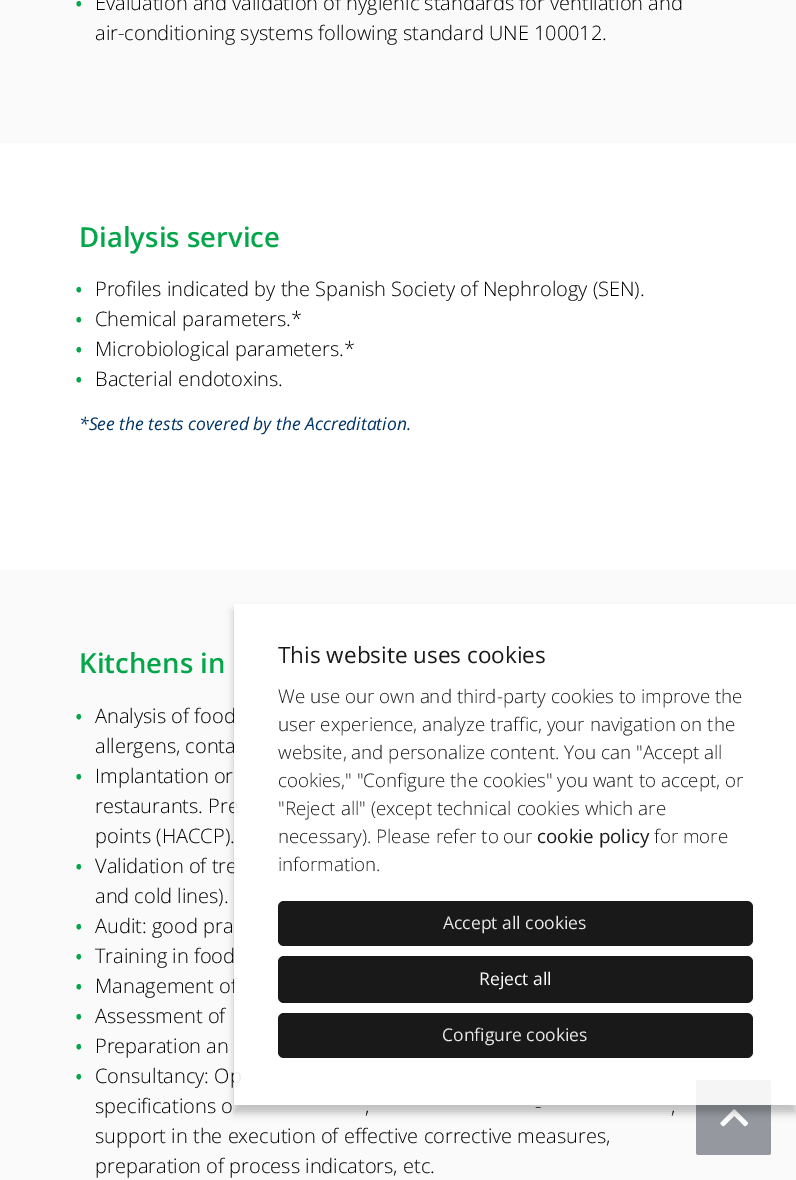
%!PS-Adobe-3.0
%%BoundingBox: 0 0 796 1180
%%LanguageLevel: 3
%%Pages: 1
%%EndComments
%%BeginProlog
/setink { 3 { 255 div 3 1 roll } repeat setrgbcolor } def
/usefont { [ exch dup neg 0 0 3 -1 roll 0 0 ] selectfont } def
/drawtext { setink usefont moveto show } def
/fillbox { setink rectfill } def
/setalpha { dup .setfillconstantalpha .setstrokeconstantalpha } def
/rrect { 5 dict begin { /r /h /w /y /x } { exch def } forall
  x r add y moveto x w add y 2 copy h add r arct x w add y h add x 1 index r arct
  x y h add x y r arct x y 2 copy exch w add exch r arct closepath end } def
/softshadow { 12 dict begin { /a /b /q /h /w /y /x } { exch def } forall gsave /was 0 def
  9 -2 -9 { dup b mul 4 div /e exch def 1 sub .425 mul 2.718 exch exp 1 add a .99 .min exch div /now exch def
    1 1 now sub 1 was sub div sub setalpha /was now def
    w h .min e 2 mul add 0 gt { x e sub y e sub w e 2 mul add h e 2 mul add
      q e add b .6 mul add w h .min 2 div e add .min 0 .max rrect fill } if } for grestore end } def
/drawimage { 5 dict begin { /h /w /y /x /name } { exch def } forall
  gsave x y translate w h scale
  w h 8 [w 0 0 h 0 0] name (r) file false 3 colorimage grestore end } def
%%EndProlog
%%BeginSetup
<< /PageSize [796 1180] /PageUsesTransparency true >> setpagedevice
%%EndSetup
%%Page: 1 1
0 .pushpdf14devicefilter
0 1180 translate 1 -1 scale
4 setmiterlimit
0 0 796 1180 255 255 255 fillbox
0 0 796 143 250 250 250 fillbox
(•) 73 15 /OpenSans-Light 31 4 166 74 drawtext
(Evaluation and validation of hygienic standards for ventilation and) 95 10 /OpenSans-Light 20 0 0 0 drawtext
(air-conditioning systems following standard UNE 100012.) 95 40 /OpenSans-Light 20 0 0 0 drawtext
(Dialysis service) 79 247 /OpenSans-SemiBold 27.5 4 166 74 drawtext
(•) 73 301 /OpenSans-Light 31 4 166 74 drawtext
(Profiles indicated by the Spanish Society of Nephrology \(SEN\).) 95 296 /OpenSans-Light 20 0 0 0 drawtext
(•) 73 331 /OpenSans-Light 31 4 166 74 drawtext
(Chemical parameters.*) 95 326 /OpenSans-Light 20 0 0 0 drawtext
(•) 73 361 /OpenSans-Light 31 4 166 74 drawtext
(Microbiological parameters.*) 95 356 /OpenSans-Light 20 0 0 0 drawtext
(•) 73 391 /OpenSans-Light 31 4 166 74 drawtext
(Bacterial endotoxins.) 95 386 /OpenSans-Light 20 0 0 0 drawtext
(*See the tests covered by the Accreditation.) 79 430 /OpenSans-Italic 17.5 0 51 102 drawtext
0 570 796 610 250 250 250 fillbox
(Kitchens in) 79 673 /OpenSans-SemiBold 27.5 4 166 74 drawtext
(•) 73 728 /OpenSans-Light 31 4 166 74 drawtext
(Analysis of food) 95 723 /OpenSans-Light 20 0 0 0 drawtext
(allergens, conta) 95 753 /OpenSans-Light 20 0 0 0 drawtext
(•) 73 788 /OpenSans-Light 31 4 166 74 drawtext
(Implantation or) 95 783 /OpenSans-Light 20 0 0 0 drawtext
(restaurants. Pre) 95 813 /OpenSans-Light 20 0 0 0 drawtext
(points \(HACCP\).) 95 843 /OpenSans-Light 20 0 0 0 drawtext
(•) 73 878 /OpenSans-Light 31 4 166 74 drawtext
(Validation of tre) 95 873 /OpenSans-Light 20 0 0 0 drawtext
(and cold lines\).) 95 903 /OpenSans-Light 20 0 0 0 drawtext
(•) 73 938 /OpenSans-Light 31 4 166 74 drawtext
(Audit: good pra) 95 933 /OpenSans-Light 20 0 0 0 drawtext
(•) 73 968 /OpenSans-Light 31 4 166 74 drawtext
(Training in food) 95 963 /OpenSans-Light 20 0 0 0 drawtext
(•) 73 998 /OpenSans-Light 31 4 166 74 drawtext
(Management of) 95 993 /OpenSans-Light 20 0 0 0 drawtext
(•) 73 1028 /OpenSans-Light 31 4 166 74 drawtext
(Assessment of) 95 1023 /OpenSans-Light 20 0 0 0 drawtext
(•) 73 1058 /OpenSans-Light 31 4 166 74 drawtext
(Preparation an) 95 1053 /OpenSans-Light 20 0 0 0 drawtext
(•) 73 1088 /OpenSans-Light 31 4 166 74 drawtext
(Consultancy: Op) 95 1083 /OpenSans-Light 20 0 0 0 drawtext
(specifications o) 95 1113 /OpenSans-Light 20 0 0 0 drawtext
(-) 535 1113 /OpenSans-Light 20 0 0 0 drawtext
(,) 365 1113 /OpenSans-Light 20 0 0 0 drawtext
(,) 671 1113 /OpenSans-Light 20 0 0 0 drawtext
(support in the execution of effective corrective measures,) 95 1143 /OpenSans-Light 20 0 0 0 drawtext
(preparation of process indicators, etc.) 95 1173 /OpenSans-Light 20 0 0 0 drawtext
149 153 159 setink
696 1080 75 75 2.5 rrect fill
(assets/img1.rgb) 720 1109 28 18 drawimage
gsave
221 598 moveto 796 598 lineto 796 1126 lineto 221 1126 lineto closepath 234 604 moveto 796 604 lineto 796 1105 lineto 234 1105 lineto closepath eoclip newpath
0 0 0 setink
234 611 562 502 0 4 0.23 softshadow
grestore
0.9 setalpha
234 604 562 501 255 255 255 fillbox
1 setalpha
(This website uses cookies) 278 663 /OpenSans-Regular 22.5 25 25 25 drawtext
(We use our own and third-party cookies to improve the) 278 703 /OpenSans-Light 18.75 25 25 25 drawtext
(user experience, analyze traffic, your navigation on the) 278 731 /OpenSans-Light 18.75 25 25 25 drawtext
(website, and personalize content. You can "Accept all) 278 759 /OpenSans-Light 18.75 25 25 25 drawtext
(cookies," "Configure the cookies" you want to accept, or) 278 787 /OpenSans-Light 18.75 25 25 25 drawtext
("Reject all" \(except technical cookies which are) 278 815 /OpenSans-Light 18.75 25 25 25 drawtext
(necessary\). Please refer to our) 278 843 /OpenSans-Light 18.75 25 25 25 drawtext
(cookie policy) 537 843 /OpenSans-Regular 18.75 25 25 25 drawtext
(for more) 654 843 /OpenSans-Light 18.75 25 25 25 drawtext
(information.) 278 871 /OpenSans-Light 18.75 25 25 25 drawtext
0.9 setalpha
0 0 0 setink
278 901 475 45 6 rrect fill
1 setalpha
(Accept all cookies) 443 929 /OpenSans-Regular 17.5 232 232 232 drawtext
0.9 setalpha
0 0 0 setink
278 956 475 47 6 rrect fill
1 setalpha
(Reject all) 479 985 /OpenSans-Regular 17.5 255 255 255 drawtext
0.9 setalpha
0 0 0 setink
278 1013 475 45 6 rrect fill
1 setalpha
(Configure cookies) 442 1041 /OpenSans-Regular 17.5 232 232 232 drawtext
.poppdf14devicefilter showpage
%%EOF
